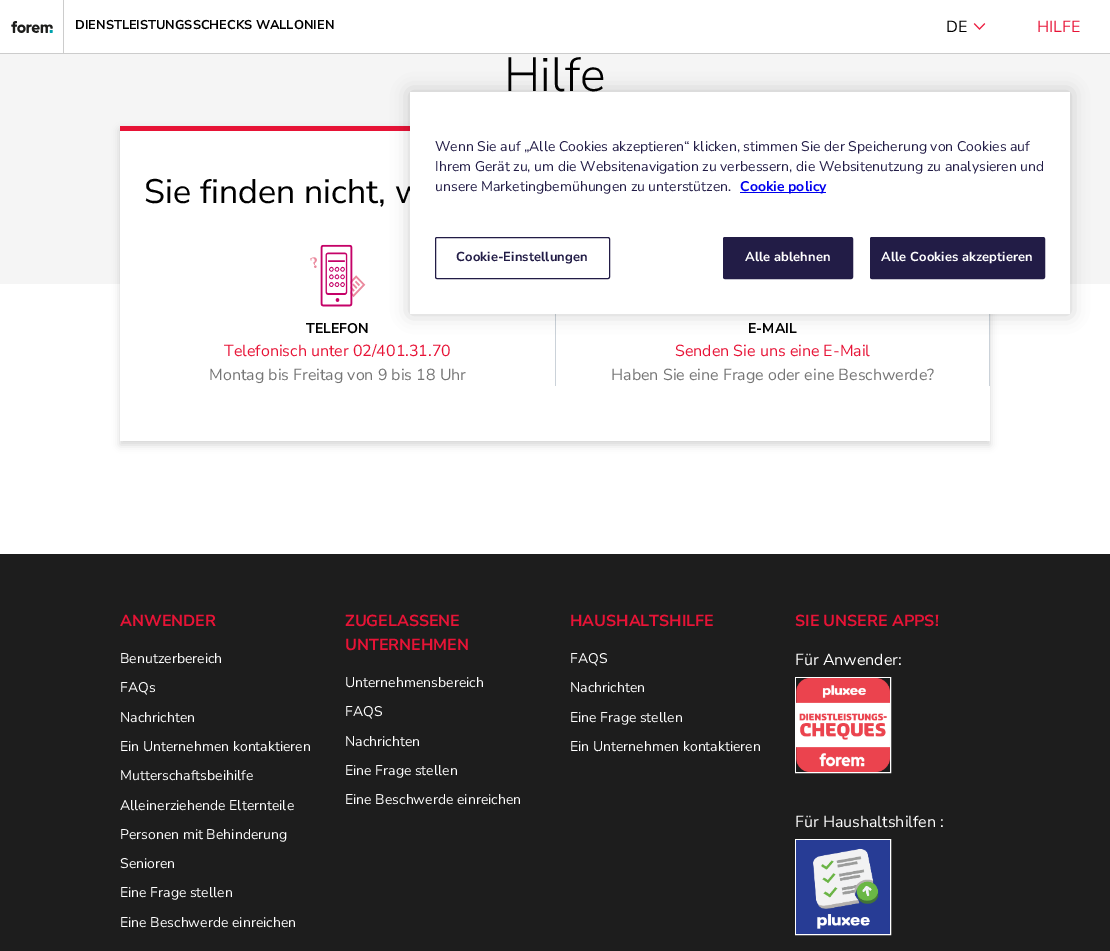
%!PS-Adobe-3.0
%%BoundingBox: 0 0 1110 951
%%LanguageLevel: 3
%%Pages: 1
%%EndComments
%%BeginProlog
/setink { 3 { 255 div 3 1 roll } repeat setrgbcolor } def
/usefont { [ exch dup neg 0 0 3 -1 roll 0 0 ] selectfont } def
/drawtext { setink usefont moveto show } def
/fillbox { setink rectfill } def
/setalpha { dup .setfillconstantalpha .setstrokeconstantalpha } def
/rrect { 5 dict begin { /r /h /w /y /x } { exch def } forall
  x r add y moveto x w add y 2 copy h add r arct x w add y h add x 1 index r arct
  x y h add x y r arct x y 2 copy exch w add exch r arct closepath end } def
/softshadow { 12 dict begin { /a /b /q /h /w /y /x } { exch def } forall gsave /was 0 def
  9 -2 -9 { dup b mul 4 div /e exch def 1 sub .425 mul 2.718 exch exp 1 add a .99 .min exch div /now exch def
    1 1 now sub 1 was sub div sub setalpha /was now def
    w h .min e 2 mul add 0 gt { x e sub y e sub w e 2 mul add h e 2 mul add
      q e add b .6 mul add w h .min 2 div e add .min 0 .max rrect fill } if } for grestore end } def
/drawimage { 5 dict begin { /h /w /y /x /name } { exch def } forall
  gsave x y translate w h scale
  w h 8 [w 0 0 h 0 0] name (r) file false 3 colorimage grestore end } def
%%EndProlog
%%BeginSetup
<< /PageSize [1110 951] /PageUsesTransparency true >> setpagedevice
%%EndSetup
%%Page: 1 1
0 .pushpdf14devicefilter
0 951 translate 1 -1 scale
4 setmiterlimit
0 0 1110 951 255 255 255 fillbox
0 53 1110 1 204 204 204 fillbox
(assets/img1.rgb) 11 21 42 12 drawimage
63 0 1 53 204 204 204 fillbox
(DIENSTLEISTUNGSSCHECKS WALLONIEN) 75 29 /NunitoSans-Bold 12.8 0 0 0 drawtext
(DE) 946 32 /NunitoSans-Regular 16 0 0 0 drawtext
(assets/img2.rgb) 973 23 13 7 drawimage
(HILFE) 1037 32 /NunitoSans-Regular 16 231 19 54 drawtext
0 54 1110 230 245 245 245 fillbox
(Hilfe) 504 91 /NunitoSans-Light 48 0 0 0 drawtext
120 130 870 315 0 4 0.16 softshadow
120 131 870 310 255 255 255 fillbox
120 126 290 5 231 19 54 fillbox
(Sie finden nicht, w) 144 203 /NunitoSans-Regular 34 0 0 0 drawtext
(assets/img3.rgb) 310 244 56 63 drawimage
(TELEFON) 306 333 /NunitoSans-Bold 14 0 0 0 drawtext
(Telefonisch unter 02/401.31.70) 224 356 /NunitoSans-Regular 16 231 19 54 drawtext
(Montag bis Freitag von 9 bis 18 Uhr) 209 380 /NunitoSans-Regular 16 117 117 117 drawtext
989 314 1 72 203 210 217 fillbox
555 314 1 72 203 210 217 fillbox
(E-MAIL) 748 333 /NunitoSans-Bold 14 0 0 0 drawtext
(Senden Sie uns eine E-Mail) 675 356 /NunitoSans-Regular 16 231 19 54 drawtext
(Haben Sie eine Frage oder eine Beschwerde?) 611 380 /NunitoSans-Regular 16 117 117 117 drawtext
0 0 0 setink
410 92 660 222 0 9 0.2 softshadow
410 92 660 222 255 255 255 fillbox
(Wenn Sie auf „Alle Cookies akzeptieren“ klicken, stimmen Sie der Speicherung von Cookies auf) 435 151 /NunitoSans-Regular 14 34 28 70 drawtext
(Ihrem Gerät zu, um die Websitenavigation zu verbessern, die Websitenutzung zu analysieren und) 435 171 /NunitoSans-Regular 14 34 28 70 drawtext
(unsere Marketingbemühungen zu unterstützen.) 435 191 /NunitoSans-Regular 14 34 28 70 drawtext
740 192 86 1 0 0 238 fillbox
(Cookie policy) 740 191 /NunitoSans-Bold 14 0 0 238 drawtext
34 28 70 setink
435.5 237.5 174 41 1.5 rrect stroke
/NunitoSans-Bold 13 usefont
456 261 moveto 0.1 0 (Cookie-Einstellungen) ashow
723.5 237.5 129 41 1.5 rrect gsave fill grestore
stroke
255 255 255 setink
745 261 moveto 0.1 0 (Alle ablehnen) ashow
34 28 70 setink
870.5 237.5 174 41 1.5 rrect gsave fill grestore
stroke
255 255 255 setink
881 261 moveto 0.1 0 (Alle Cookies akzeptieren) ashow
0 554 1110 397 29 29 29 fillbox
(ANWENDER) 120 626 /NunitoSans-Bold 16 231 19 54 drawtext
(Benutzerbereich) 120 663 /NunitoSans-Regular 14 255 255 255 drawtext
(FAQs) 120 692 /NunitoSans-Regular 14 255 255 255 drawtext
(Nachrichten) 120 722 /NunitoSans-Regular 14 255 255 255 drawtext
(Ein Unternehmen kontaktieren) 120 751 /NunitoSans-Regular 14 255 255 255 drawtext
(Mutterschaftsbeihilfe) 120 780 /NunitoSans-Regular 14 255 255 255 drawtext
(Alleinerziehende Elternteile) 120 810 /NunitoSans-Regular 14 255 255 255 drawtext
(Personen mit Behinderung) 120 839 /NunitoSans-Regular 14 255 255 255 drawtext
(Senioren) 120 868 /NunitoSans-Regular 14 255 255 255 drawtext
(Eine Frage stellen) 120 897 /NunitoSans-Regular 14 255 255 255 drawtext
(Eine Beschwerde einreichen) 120 927 /NunitoSans-Regular 14 255 255 255 drawtext
(ZUGELASSENE) 345 626 /NunitoSans-Bold 16 231 19 54 drawtext
(UNTERNEHMEN) 345 650 /NunitoSans-Bold 16 231 19 54 drawtext
(Unternehmensbereich) 345 687 /NunitoSans-Regular 14 255 255 255 drawtext
(FAQS) 345 716 /NunitoSans-Regular 14 255 255 255 drawtext
(Nachrichten) 345 746 /NunitoSans-Regular 14 255 255 255 drawtext
(Eine Frage stellen) 345 775 /NunitoSans-Regular 14 255 255 255 drawtext
(Eine Beschwerde einreichen) 345 804 /NunitoSans-Regular 14 255 255 255 drawtext
(HAUSHALTSHILFE) 570 626 /NunitoSans-Bold 16 231 19 54 drawtext
(FAQS) 570 663 /NunitoSans-Regular 14 255 255 255 drawtext
(Nachrichten) 570 692 /NunitoSans-Regular 14 255 255 255 drawtext
(Eine Frage stellen) 570 722 /NunitoSans-Regular 14 255 255 255 drawtext
(Ein Unternehmen kontaktieren) 570 751 /NunitoSans-Regular 14 255 255 255 drawtext
(SIE UNSERE APPS!) 795 626 /NunitoSans-Bold 16 231 19 54 drawtext
(Für Anwender:) 795 665 /NunitoSans-Regular 16 255 255 255 drawtext
795.5 677.5 95 95 rectstroke
(assets/img4.rgb) 796 678 94 94 drawimage
(Für Haushaltshilfen :) 795 827 /NunitoSans-Regular 16 255 255 255 drawtext
795.5 839.5 95 95 rectstroke
(assets/img5.rgb) 796 840 94 94 drawimage
.poppdf14devicefilter showpage
%%EOF
